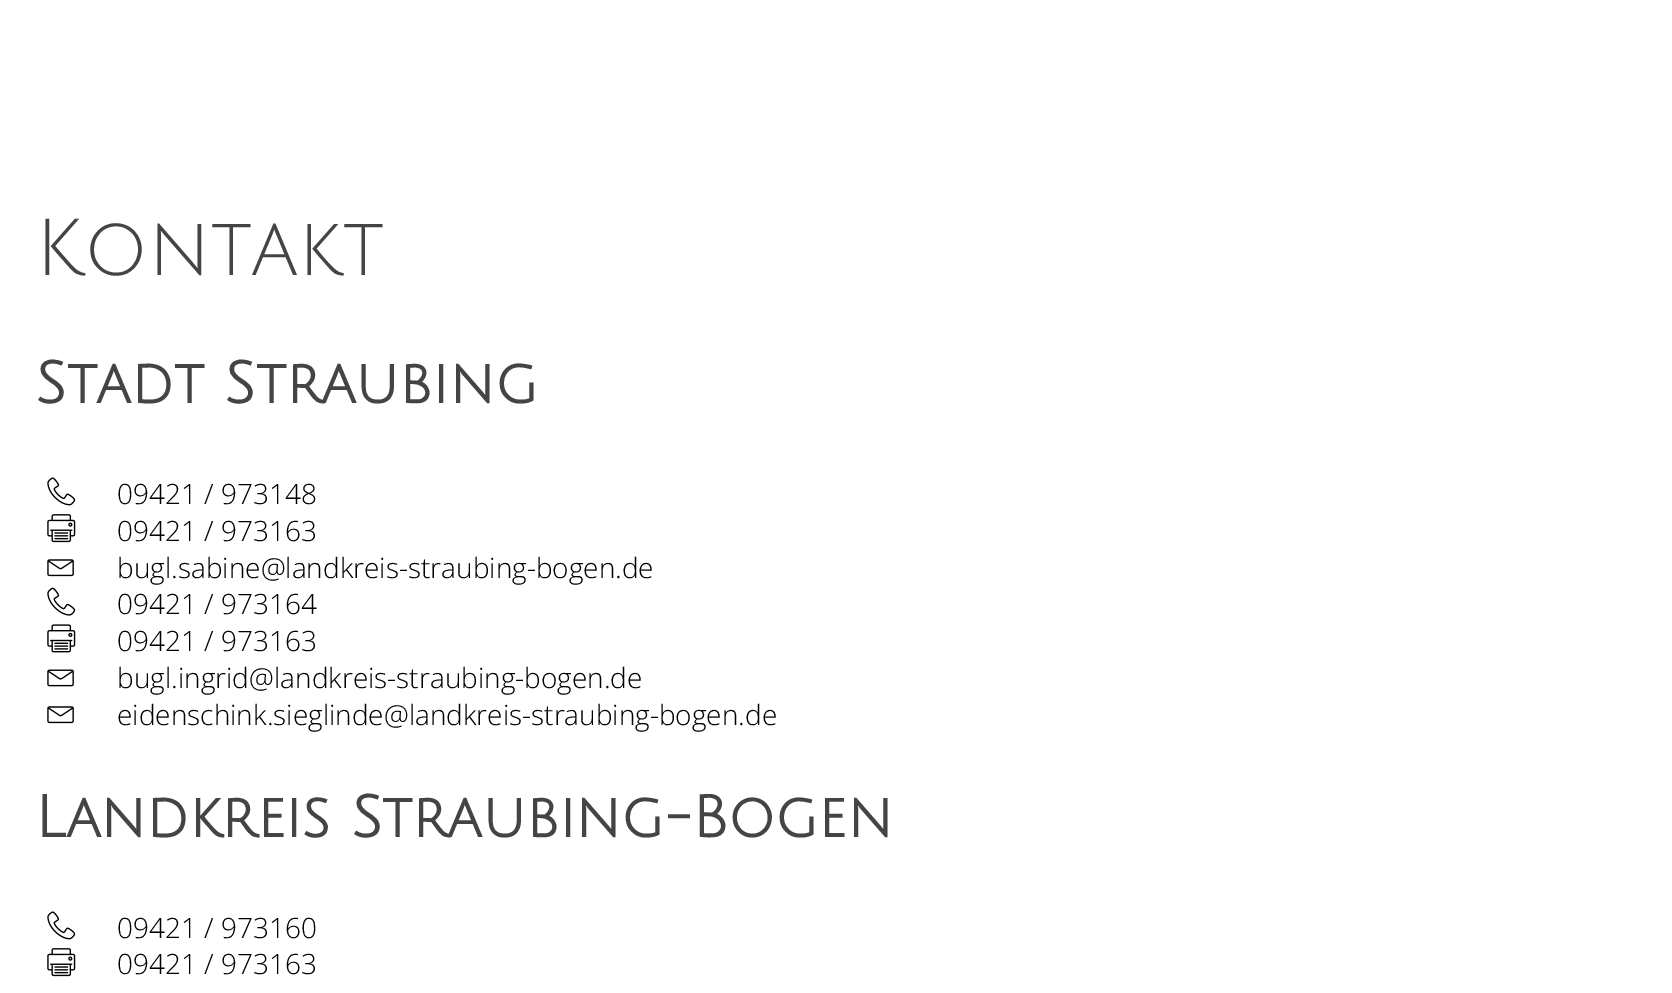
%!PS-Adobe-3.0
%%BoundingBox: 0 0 1672 993
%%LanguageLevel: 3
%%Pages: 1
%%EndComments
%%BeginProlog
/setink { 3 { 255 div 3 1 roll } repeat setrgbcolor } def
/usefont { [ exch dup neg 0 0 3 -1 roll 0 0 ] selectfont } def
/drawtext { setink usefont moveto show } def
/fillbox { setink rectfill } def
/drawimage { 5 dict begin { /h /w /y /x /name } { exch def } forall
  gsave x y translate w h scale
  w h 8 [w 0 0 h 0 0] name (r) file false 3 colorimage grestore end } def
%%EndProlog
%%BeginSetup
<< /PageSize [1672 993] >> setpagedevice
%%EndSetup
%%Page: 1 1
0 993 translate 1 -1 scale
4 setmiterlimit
0 0 1672 993 255 255 255 fillbox
(Kontakt) 35 275 /JuliusSansOne-Regular 78.75 68 68 68 drawtext
(Stadt Straubing) 35 403 /JuliusSansOne-Bold 57.75 68 68 68 drawtext
(assets/img1.rgb) 47 477 29 29 drawimage
(09421 / 973148) 117 504 /OpenSans-Light 28 0 0 0 drawtext
(assets/img2.rgb) 47 514 29 29 drawimage
(09421 / 973163) 117 541 /OpenSans-Light 28 0 0 0 drawtext
(assets/img3.rgb) 47 559 27 18 drawimage
(bugl.sabine@landkreis-straubing-bogen.de) 117 578 /OpenSans-Light 28 0 0 0 drawtext
(assets/img4.rgb) 47 587 29 29 drawimage
(09421 / 973164) 117 614 /OpenSans-Light 28 0 0 0 drawtext
(assets/img5.rgb) 47 624 29 29 drawimage
(09421 / 973163) 117 651 /OpenSans-Light 28 0 0 0 drawtext
(assets/img6.rgb) 47 669 27 18 drawimage
(bugl.ingrid@landkreis-straubing-bogen.de) 117 688 /OpenSans-Light 28 0 0 0 drawtext
(assets/img3.rgb) 47 706 27 18 drawimage
(eidenschink.sieglinde@landkreis-straubing-bogen.de) 117 725 /OpenSans-Light 28 0 0 0 drawtext
(Landkreis Straubing-Bogen) 35 837 /JuliusSansOne-Bold 57.75 68 68 68 drawtext
(assets/img1.rgb) 47 911 29 29 drawimage
(09421 / 973160) 117 938 /OpenSans-Light 28 0 0 0 drawtext
(assets/img2.rgb) 47 948 29 29 drawimage
(09421 / 973163) 117 974 /OpenSans-Light 28 0 0 0 drawtext
showpage
%%EOF
